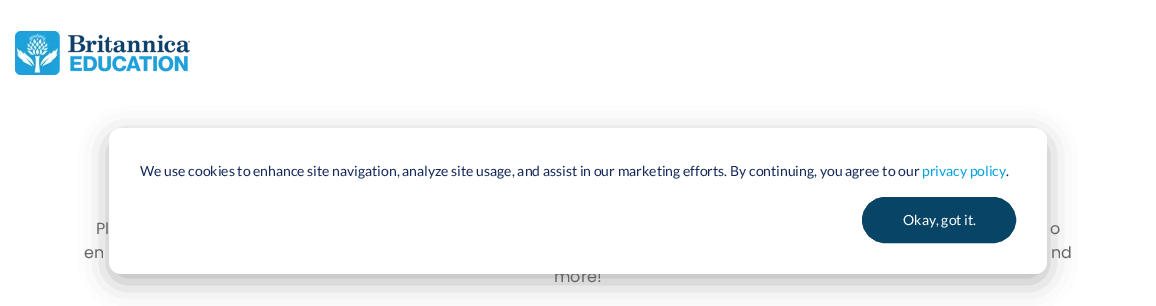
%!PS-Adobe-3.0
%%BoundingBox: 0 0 1156 306
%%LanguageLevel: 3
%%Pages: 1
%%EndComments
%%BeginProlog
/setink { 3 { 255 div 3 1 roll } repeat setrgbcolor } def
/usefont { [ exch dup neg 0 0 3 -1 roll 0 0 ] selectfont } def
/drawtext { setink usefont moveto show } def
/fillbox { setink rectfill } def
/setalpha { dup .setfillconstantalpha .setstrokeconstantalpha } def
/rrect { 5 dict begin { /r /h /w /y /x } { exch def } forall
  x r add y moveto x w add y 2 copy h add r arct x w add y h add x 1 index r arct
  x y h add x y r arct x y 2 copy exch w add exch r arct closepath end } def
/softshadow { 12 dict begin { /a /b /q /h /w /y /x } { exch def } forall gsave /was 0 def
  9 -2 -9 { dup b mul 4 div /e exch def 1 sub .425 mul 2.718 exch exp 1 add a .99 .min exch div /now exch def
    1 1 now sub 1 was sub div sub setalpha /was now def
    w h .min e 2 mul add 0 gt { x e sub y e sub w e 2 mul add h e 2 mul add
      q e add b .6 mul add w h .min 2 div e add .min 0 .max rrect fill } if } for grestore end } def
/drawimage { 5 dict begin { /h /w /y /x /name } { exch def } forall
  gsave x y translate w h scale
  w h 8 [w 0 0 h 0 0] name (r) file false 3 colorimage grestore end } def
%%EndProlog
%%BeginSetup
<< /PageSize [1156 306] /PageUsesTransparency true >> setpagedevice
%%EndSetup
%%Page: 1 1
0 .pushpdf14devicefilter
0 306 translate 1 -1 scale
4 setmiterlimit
0 0 1156 306 255 255 255 fillbox
(assets/img1.rgb) 15 31 175 44 drawimage
0 0 0 setink
109 136 938 146 12 14 0.28 softshadow
(more!) 554 282 /Poppins-Regular 16 102 102 102 drawtext
255 255 255 setink
109 128 938 146 12 rrect fill
(We use cookies to enhance site navigation, analyze site usage, and assist in our marketing efforts. By continuing, you agree to our) 140 176 /Lato-Regular 14 21 41 90 drawtext
(privacy policy) 922 176 /Lato-Regular 14 0 161 223 drawtext
(.) 1006 176 /Lato-Regular 14 21 41 90 drawtext
8 68 102 setink
862.5 197.5 153 45 22.5 rrect gsave fill grestore
stroke
(Okay, got it.) 903 225 /Lato-Regular 14 255 255 255 drawtext
(Pl) 96 234 /Poppins-Regular 16 102 102 102 drawtext
(o) 1050 234 /Poppins-Regular 16 102 102 102 drawtext
(en) 84 258 /Poppins-Regular 16 102 102 102 drawtext
(nd) 1051 258 /Poppins-Regular 16 102 102 102 drawtext
.poppdf14devicefilter showpage
%%EOF
